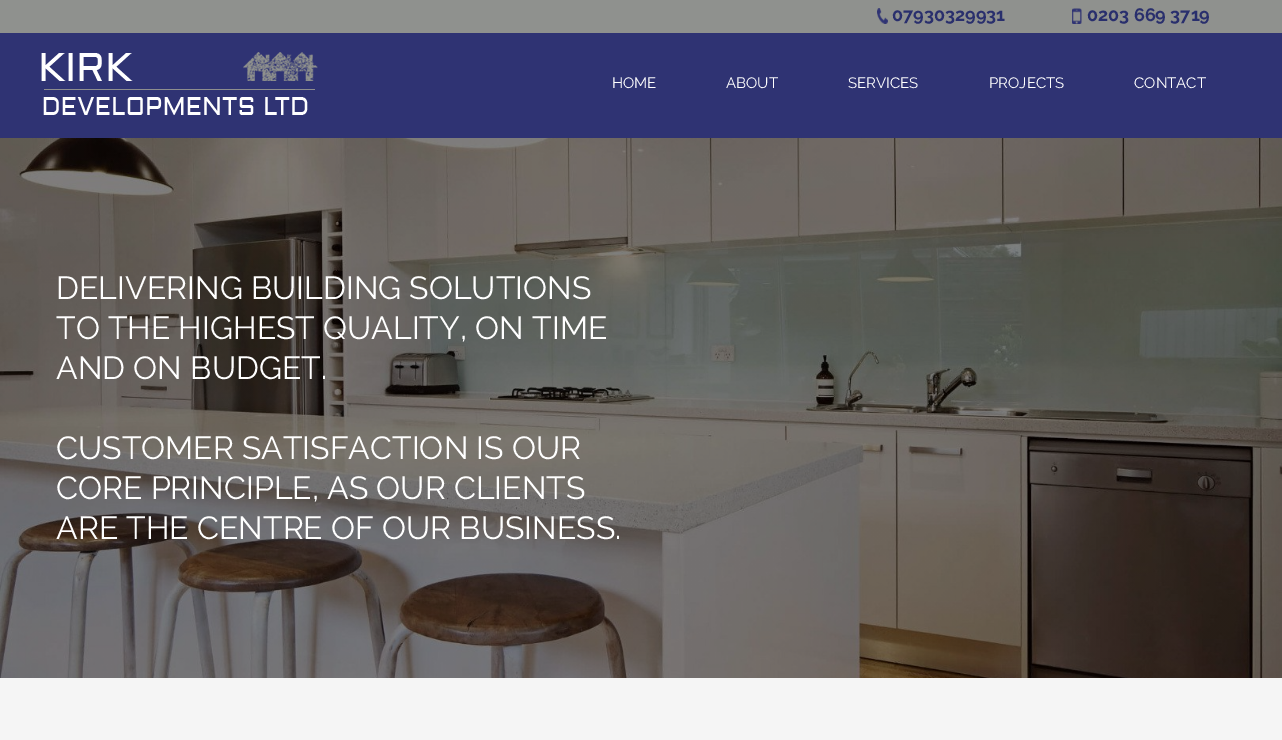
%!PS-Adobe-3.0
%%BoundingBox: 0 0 1282 740
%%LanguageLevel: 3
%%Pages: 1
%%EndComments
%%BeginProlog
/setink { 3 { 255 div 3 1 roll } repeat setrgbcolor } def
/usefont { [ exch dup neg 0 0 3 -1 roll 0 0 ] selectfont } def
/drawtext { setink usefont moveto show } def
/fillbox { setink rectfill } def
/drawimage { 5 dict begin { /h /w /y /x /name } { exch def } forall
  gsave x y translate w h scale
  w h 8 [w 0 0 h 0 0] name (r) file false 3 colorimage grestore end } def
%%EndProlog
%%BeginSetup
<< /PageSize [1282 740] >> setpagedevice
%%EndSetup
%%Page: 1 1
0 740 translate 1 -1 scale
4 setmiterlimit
0 0 1282 740 143 145 142 fillbox
(assets/img1.rgb) 877 8 11 16 drawimage
(07930329931) 892 21 /Raleway-Bold 18 41 47 109 drawtext
(assets/img2.rgb) 1072 8 10 16 drawimage
(0203 669 3719) 1087 21 /Raleway-Bold 18 41 47 109 drawtext
0 33 1282 105 47 51 115 fillbox
(assets/img3.rgb) 41 52 277 63 drawimage
(HOME) 612 88 /Raleway-Regular 15 255 255 255 drawtext
(ABOUT) 726 88 /Raleway-Regular 15 255 255 255 drawtext
(SERVICES) 848 88 /Raleway-Regular 15 255 255 255 drawtext
(PROJECTS) 989 88 /Raleway-Regular 15 255 255 255 drawtext
(CONTACT) 1134 88 /Raleway-Regular 15 255 255 255 drawtext
(assets/img4.rgb) 0 138 1282 540 drawimage
(DELIVERING BUILDING SOLUTIONS) 56 299 /Raleway-Regular 32 255 255 255 drawtext
(TO THE HIGHEST QUALITY, ON TIME) 56 339 /Raleway-Regular 32 255 255 255 drawtext
(AND ON BUDGET.) 56 379 /Raleway-Regular 32 255 255 255 drawtext
(CUSTOMER SATISFACTION IS OUR) 56 459 /Raleway-Regular 32 255 255 255 drawtext
(CORE PRINCIPLE, AS OUR CLIENTS) 56 499 /Raleway-Regular 32 255 255 255 drawtext
(ARE THE CENTRE OF OUR BUSINESS.) 56 539 /Raleway-Regular 32 255 255 255 drawtext
0 678 1282 62 245 245 245 fillbox
showpage
%%EOF
